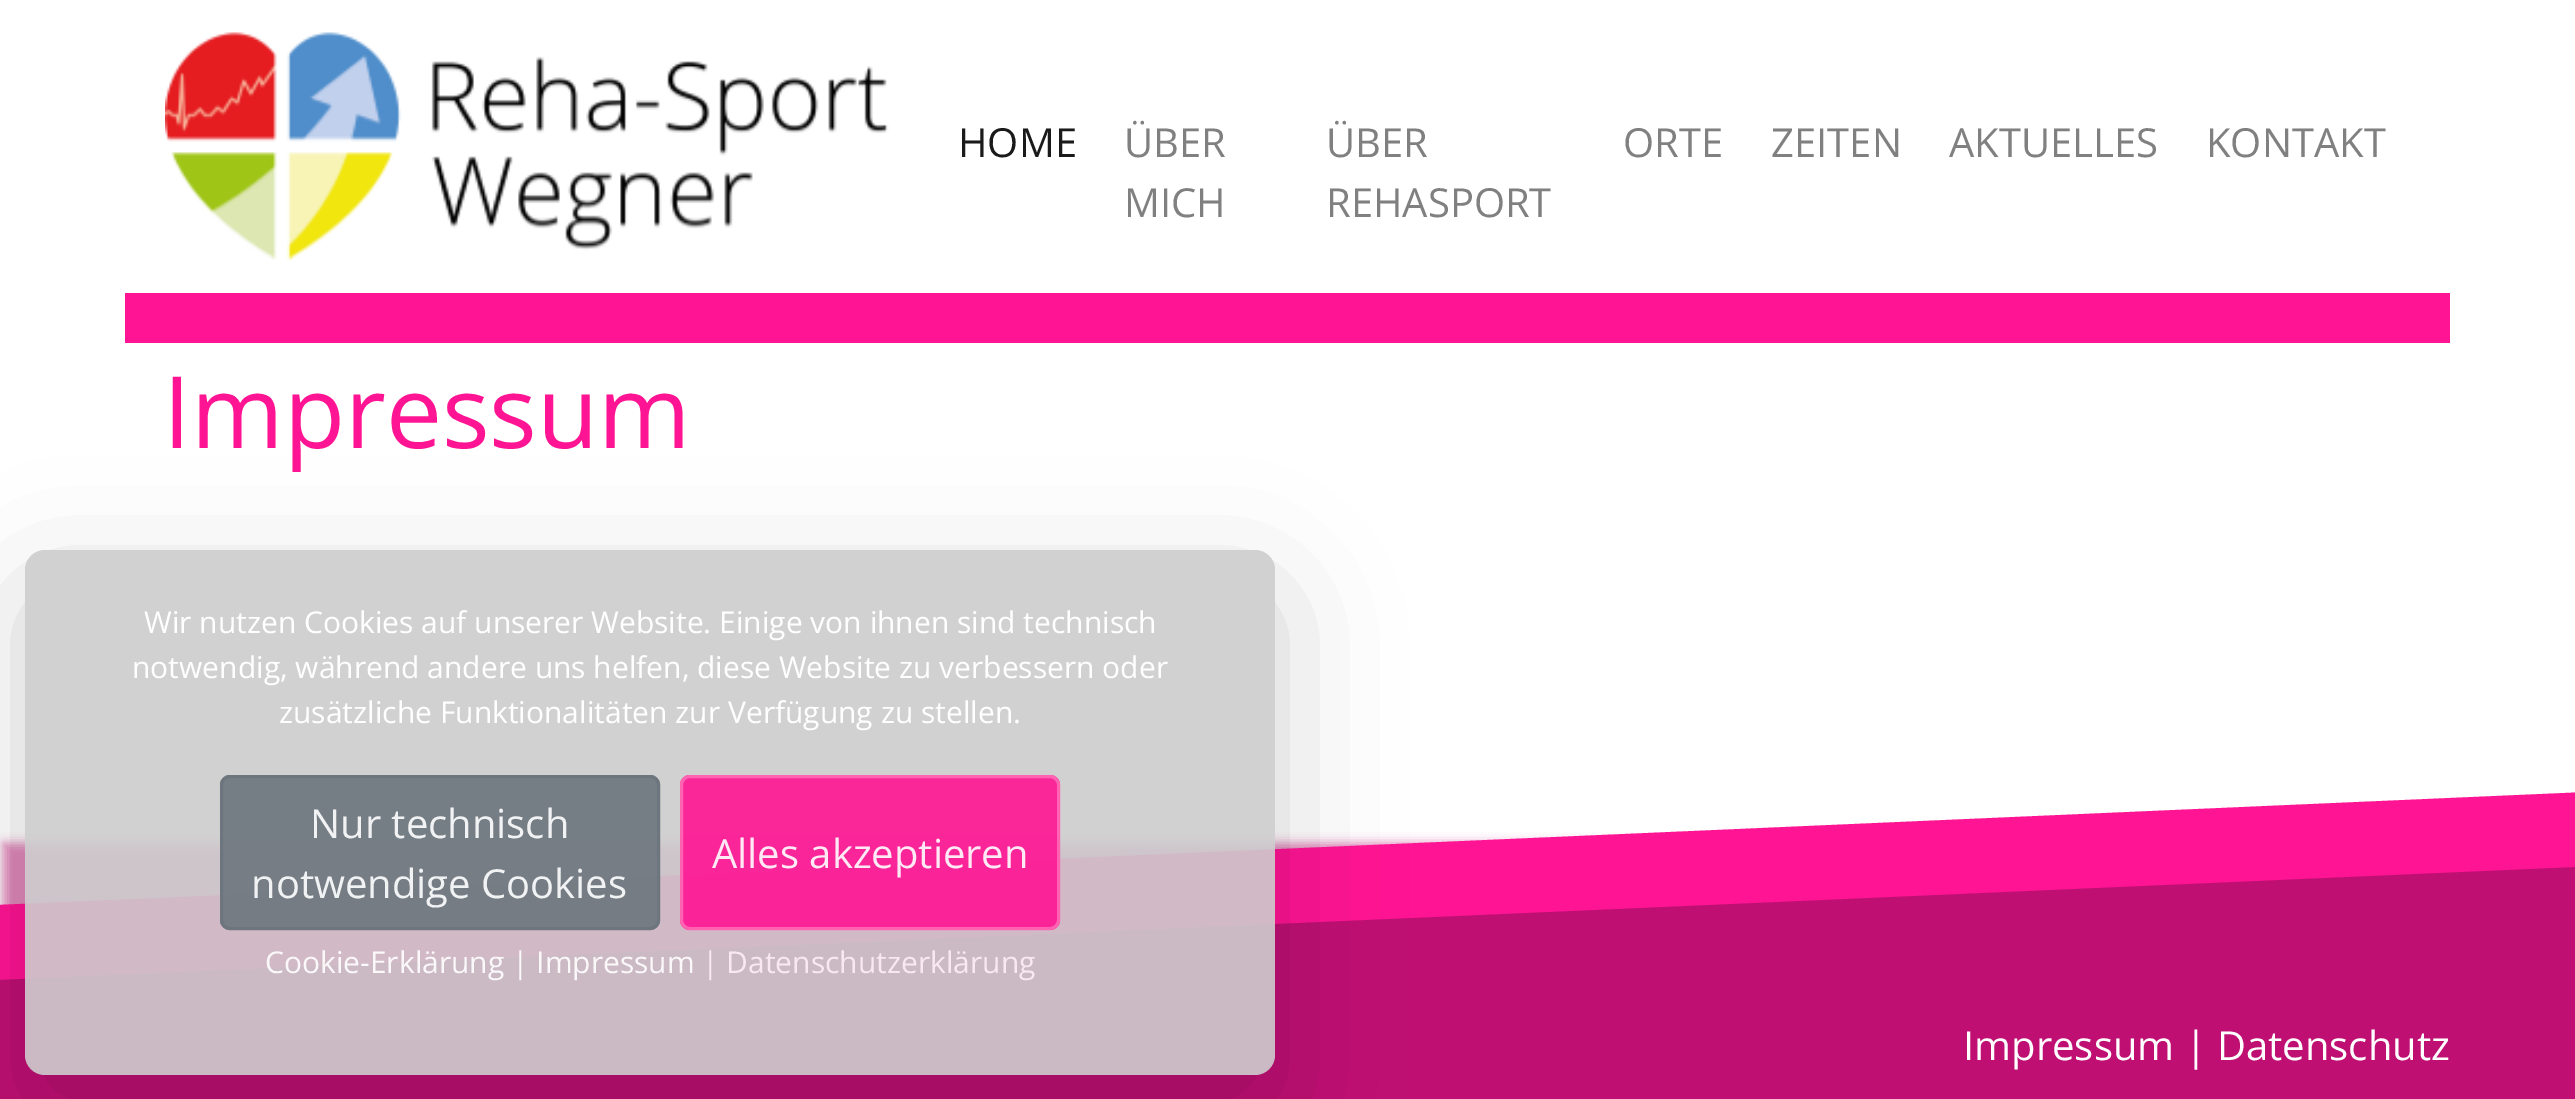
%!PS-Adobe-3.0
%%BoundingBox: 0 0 2575 1099
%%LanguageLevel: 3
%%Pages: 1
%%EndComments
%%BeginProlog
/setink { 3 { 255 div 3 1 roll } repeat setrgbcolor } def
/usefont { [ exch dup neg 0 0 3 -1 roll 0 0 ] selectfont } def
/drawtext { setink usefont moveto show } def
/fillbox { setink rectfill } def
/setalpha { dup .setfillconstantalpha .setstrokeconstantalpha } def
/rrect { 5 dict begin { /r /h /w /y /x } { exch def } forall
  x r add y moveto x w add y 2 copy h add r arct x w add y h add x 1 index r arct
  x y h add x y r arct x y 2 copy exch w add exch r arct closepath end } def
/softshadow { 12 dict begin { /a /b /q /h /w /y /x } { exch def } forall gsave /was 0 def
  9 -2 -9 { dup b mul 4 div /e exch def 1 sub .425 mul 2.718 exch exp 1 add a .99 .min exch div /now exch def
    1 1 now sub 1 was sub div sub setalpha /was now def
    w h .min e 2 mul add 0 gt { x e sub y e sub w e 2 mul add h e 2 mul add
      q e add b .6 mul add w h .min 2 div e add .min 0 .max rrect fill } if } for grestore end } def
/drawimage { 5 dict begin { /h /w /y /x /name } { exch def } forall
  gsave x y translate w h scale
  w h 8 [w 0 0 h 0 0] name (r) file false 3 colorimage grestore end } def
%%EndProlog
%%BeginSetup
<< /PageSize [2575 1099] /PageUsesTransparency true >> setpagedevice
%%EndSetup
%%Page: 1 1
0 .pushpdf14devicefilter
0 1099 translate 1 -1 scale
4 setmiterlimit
0 0 2575 1099 255 255 255 fillbox
(assets/img1.rgb) 165 32 724 228 drawimage
(HOME) 958 157 /OpenSans-Regular 40 26 26 26 drawtext
(ÜBER) 1124 157 /OpenSans-Regular 40 128 128 128 drawtext
(MICH) 1124 217 /OpenSans-Regular 40 128 128 128 drawtext
(ÜBER) 1326 157 /OpenSans-Regular 40 128 128 128 drawtext
(REHASPORT) 1326 217 /OpenSans-Regular 40 128 128 128 drawtext
(ORTE) 1623 157 /OpenSans-Regular 40 128 128 128 drawtext
(ZEITEN) 1771 157 /OpenSans-Regular 40 128 128 128 drawtext
(AKTUELLES) 1949 157 /OpenSans-Regular 40 128 128 128 drawtext
(KONTAKT) 2206 157 /OpenSans-Regular 40 128 128 128 drawtext
125 293 2325 50 255 20 147 fillbox
(Impressum) 163 448 /OpenSans-Regular 100 255 20 147 drawtext
191 15 115 setink
3 843 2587 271 0 5 0.5 softshadow
255 20 147 setink
-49 907 moveto 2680 788 lineto 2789 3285 lineto 60 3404 lineto closepath fill
191 15 115 setink
-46 982 moveto 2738 860 lineto 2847 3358 lineto 63 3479 lineto closepath fill
gsave
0 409 moveto 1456 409 lineto 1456 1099 lineto 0 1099 lineto closepath 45 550 moveto 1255 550 lineto 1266 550 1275 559 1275 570 curveto 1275 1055 lineto 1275 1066 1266 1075 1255 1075 curveto 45 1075 lineto 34 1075 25 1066 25 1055 curveto 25 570 lineto 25 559 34 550 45 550 curveto closepath eoclip newpath
0 0 0 setink
25 590 1250 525 20 60 0.18 softshadow
grestore
0.9 setalpha
204 204 204 setink
25 550 1250 525 20 rrect fill
1 setalpha
(Wir nutzen Cookies auf unserer Website. Einige von ihnen sind technisch) 144 633 /OpenSans-Regular 30 255 255 255 drawtext
(notwendig, während andere uns helfen, diese Website zu verbessern oder) 132 678 /OpenSans-Regular 30 255 255 255 drawtext
(zusätzliche Funktionalitäten zur Verfügung zu stellen.) 279 723 /OpenSans-Regular 30 255 255 255 drawtext
0.9 setalpha
108 117 125 setink
220 775 440 155 10 rrect fill
3 setlinewidth
221.5 776.5 437 152 8.5 rrect stroke
1 setalpha
(Nur technisch) 310 838 /OpenSans-Regular 40 241 242 243 drawtext
(notwendige Cookies) 251 898 /OpenSans-Regular 40 241 242 243 drawtext
0.9 setalpha
255 20 147 setink
680 775 380 155 10 rrect fill
255 105 180 setink
681.5 776.5 377 152 8.5 rrect stroke
1 setalpha
(Alles akzeptieren) 712 868 /OpenSans-Regular 40 255 233 245 drawtext
(Cookie-Erklärung | Impressum) 265 973 /OpenSans-Regular 30 250 248 249 drawtext
(| Datenschutzerklärung) 702 973 /OpenSans-Regular 30 249 231 241 drawtext
(Impressum | Datenschutz) 1963 1060 /OpenSans-Regular 40 255 255 255 drawtext
.poppdf14devicefilter showpage
%%EOF
